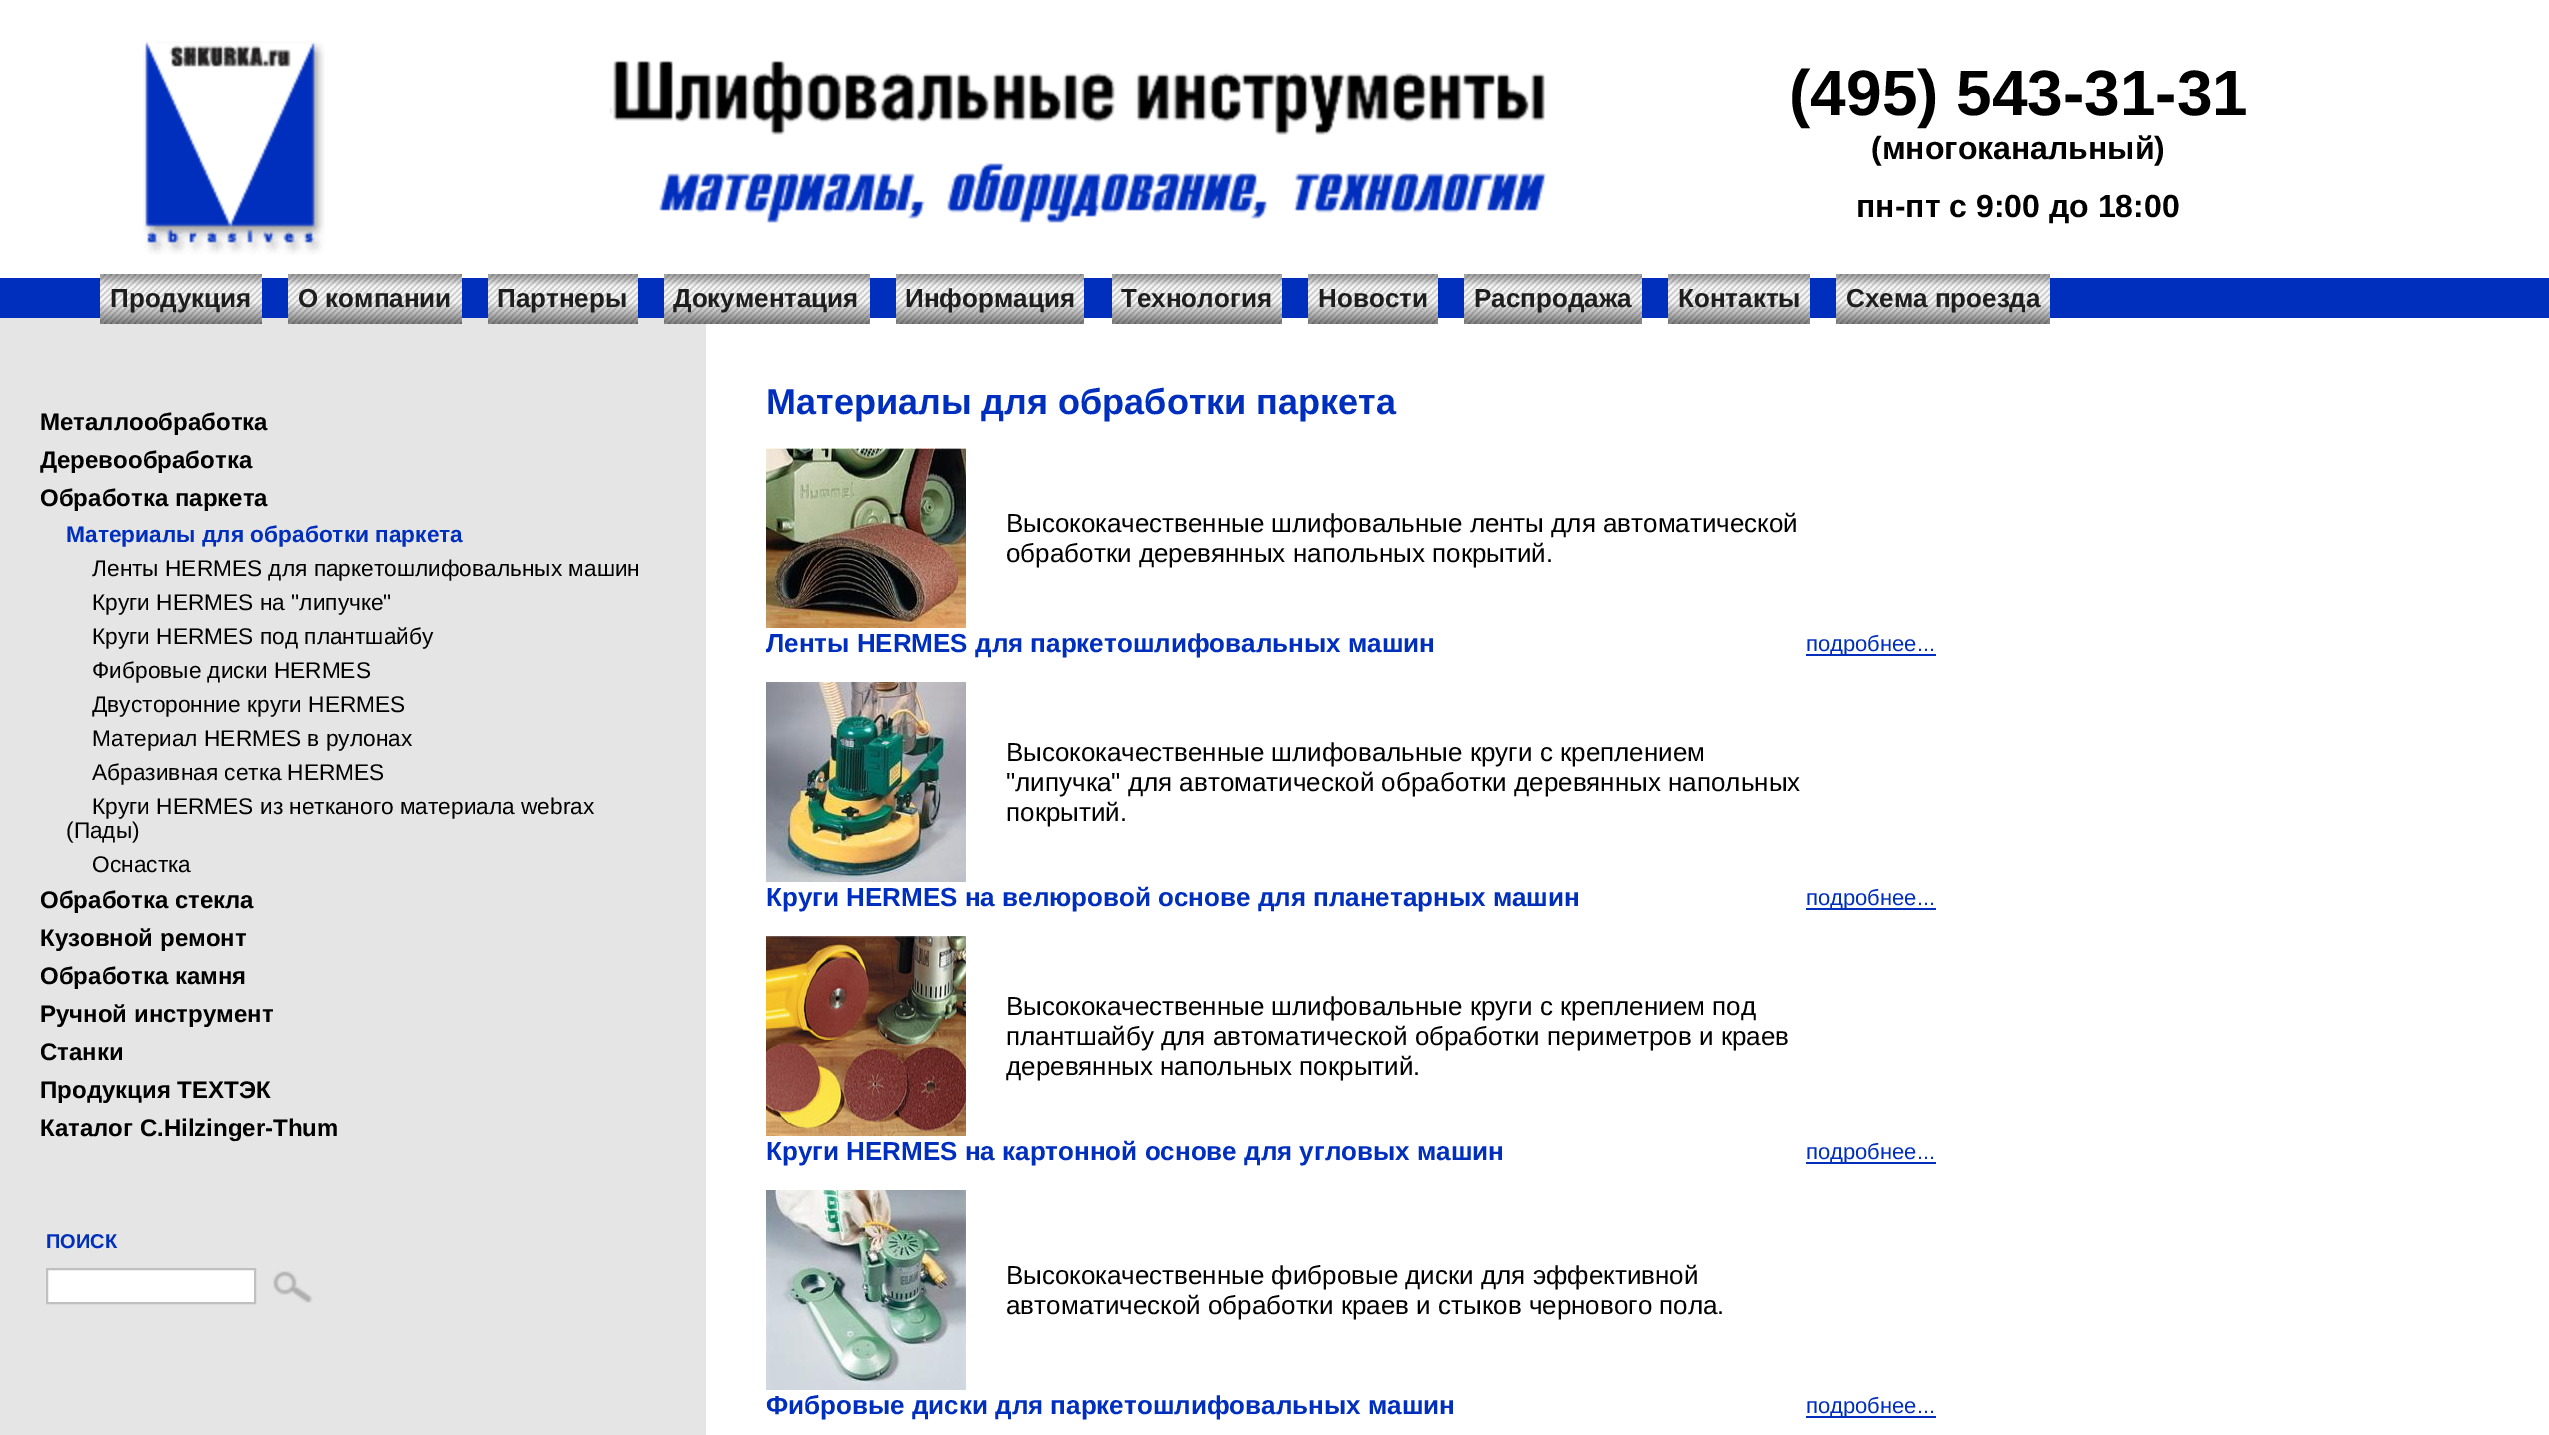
%!PS-Adobe-3.0
%%BoundingBox: 0 0 2549 1435
%%LanguageLevel: 3
%%Pages: 1
%%EndComments
%%BeginProlog
/setink { 3 { 255 div 3 1 roll } repeat setrgbcolor } def
/usefont { [ exch dup neg 0 0 3 -1 roll 0 0 ] selectfont } def
/drawtext { setink usefont moveto show } def
/fillbox { setink rectfill } def
/drawimage { 5 dict begin { /h /w /y /x /name } { exch def } forall
  gsave x y translate w h scale
  w h 8 [w 0 0 h 0 0] name (r) file false 3 colorimage grestore end } def
%%EndProlog
%%BeginSetup
<< /PageSize [2549 1435] >> setpagedevice
%%EndSetup
%%Page: 1 1
0 1435 translate 1 -1 scale
4 setmiterlimit
0 0 2549 1435 255 255 255 fillbox
(assets/img1.rgb) 143 41 182 214 drawimage
(assets/img2.rgb) 609 60 938 163 drawimage
(\(495\) 543-31-31) 1789 115 /LiberationSans-Bold 64 0 0 0 drawtext
(\(многоканальный\)) 1871 159 /LiberationSans-Bold 32 0 0 0 drawtext
(пн-пт с 9:00 до 18:00) 1856 217 /LiberationSans-Bold 32 0 0 0 drawtext
0 278 2549 40 0 46 189 fillbox
0 318 666 1117 229 229 229 fillbox
(assets/img3.rgb) 100 274 162 50 drawimage
(assets/img4.rgb) 288 274 174 50 drawimage
(assets/img5.rgb) 488 274 150 50 drawimage
(assets/img6.rgb) 664 274 206 50 drawimage
(assets/img7.rgb) 896 274 188 50 drawimage
(assets/img8.rgb) 1112 274 170 50 drawimage
(assets/img9.rgb) 1308 274 130 50 drawimage
(assets/img10.rgb) 1464 274 178 50 drawimage
(assets/img11.rgb) 1668 274 142 50 drawimage
(assets/img12.rgb) 1836 274 214 50 drawimage
(Продукция) 110 307 /LiberationSans-Bold 26 30 30 30 drawtext
(О компании) 298 307 /LiberationSans-Bold 26 30 30 30 drawtext
(Партнеры) 497 307 /LiberationSans-Bold 26 30 30 30 drawtext
(Документация) 673 307 /LiberationSans-Bold 26 30 30 30 drawtext
(Информация) 905 307 /LiberationSans-Bold 26 30 30 30 drawtext
(Технология) 1121 307 /LiberationSans-Bold 26 30 30 30 drawtext
(Новости) 1318 307 /LiberationSans-Bold 26 30 30 30 drawtext
(Распродажа) 1474 307 /LiberationSans-Bold 26 30 30 30 drawtext
(Контакты) 1678 307 /LiberationSans-Bold 26 30 30 30 drawtext
(Схема проезда) 1846 307 /LiberationSans-Bold 26 30 30 30 drawtext
666 324 40 1111 229 229 229 fillbox
(Материалы для обработки паркета) 766 414 /LiberationSans-Bold 36 0 46 189 drawtext
(assets/img13.rgb) 766 448 200 180 drawimage
(Высококачественные шлифовальные ленты для автоматической) 1006 532 /LiberationSans-Regular 26 0 0 0 drawtext
(обработки деревянных напольных покрытий.) 1006 562 /LiberationSans-Regular 26 0 0 0 drawtext
(Ленты HERMES для паркетошлифовальных машин) 766 652 /LiberationSans-Bold 26 0 46 189 drawtext
1806 654 130 2 0 46 189 fillbox
(подробнее...) 1806 651 /LiberationSans-Regular 22 0 46 189 drawtext
(assets/img14.rgb) 766 682 200 200 drawimage
(Высококачественные шлифовальные круги с креплением) 1006 761 /LiberationSans-Regular 26 0 0 0 drawtext
("липучка" для автоматической обработки деревянных напольных) 1006 791 /LiberationSans-Regular 26 0 0 0 drawtext
(покрытий.) 1006 821 /LiberationSans-Regular 26 0 0 0 drawtext
(Круги HERMES на велюровой основе для планетарных машин) 766 906 /LiberationSans-Bold 26 0 46 189 drawtext
1806 908 130 2 0 46 189 fillbox
(подробнее...) 1806 905 /LiberationSans-Regular 22 0 46 189 drawtext
(assets/img15.rgb) 766 936 200 200 drawimage
(Высококачественные шлифовальные круги с креплением под) 1006 1015 /LiberationSans-Regular 26 0 0 0 drawtext
(плантшайбу для автоматической обработки периметров и краев) 1006 1045 /LiberationSans-Regular 26 0 0 0 drawtext
(деревянных напольных покрытий.) 1006 1075 /LiberationSans-Regular 26 0 0 0 drawtext
(Круги HERMES на картонной основе для угловых машин) 766 1160 /LiberationSans-Bold 26 0 46 189 drawtext
1806 1162 130 2 0 46 189 fillbox
(подробнее...) 1806 1159 /LiberationSans-Regular 22 0 46 189 drawtext
(assets/img16.rgb) 766 1190 200 200 drawimage
(Высококачественные фибровые диски для эффективной) 1006 1284 /LiberationSans-Regular 26 0 0 0 drawtext
(автоматической обработки краев и стыков чернового пола.) 1006 1314 /LiberationSans-Regular 26 0 0 0 drawtext
(Фибровые диски для паркетошлифовальных машин) 766 1414 /LiberationSans-Bold 26 0 46 189 drawtext
1806 1416 130 2 0 46 189 fillbox
(подробнее...) 1806 1413 /LiberationSans-Regular 22 0 46 189 drawtext
(Металлообработка) 40 430 /LiberationSans-Bold 24 0 0 0 drawtext
(Деревообработка) 40 468 /LiberationSans-Bold 24 0 0 0 drawtext
(Обработка паркета) 40 506 /LiberationSans-Bold 24 0 0 0 drawtext
(Материалы для обработки паркета) 66 542 /LiberationSans-Bold 22.7 0 46 189 drawtext
(Ленты HERMES для паркетошлифовальных машин) 92 576 /LiberationSans-Regular 22.7 0 0 0 drawtext
(Круги HERMES на "липучке") 92 610 /LiberationSans-Regular 22.7 0 0 0 drawtext
(Круги HERMES под плантшайбу) 92 644 /LiberationSans-Regular 22.7 0 0 0 drawtext
(Фибровые диски HERMES) 92 678 /LiberationSans-Regular 22.7 0 0 0 drawtext
(Двусторонние круги HERMES) 92 712 /LiberationSans-Regular 22.7 0 0 0 drawtext
(Материал HERMES в рулонах) 92 746 /LiberationSans-Regular 22.7 0 0 0 drawtext
(Абразивная сетка HERMES) 92 780 /LiberationSans-Regular 22.7 0 0 0 drawtext
(Круги HERMES из нетканого материала webrax) 92 814 /LiberationSans-Regular 22.7 0 0 0 drawtext
(\(Пады\)) 66 838 /LiberationSans-Regular 22.7 0 0 0 drawtext
(Оснастка) 92 872 /LiberationSans-Regular 22.7 0 0 0 drawtext
(Обработка стекла) 40 908 /LiberationSans-Bold 24 0 0 0 drawtext
(Кузовной ремонт) 40 946 /LiberationSans-Bold 24 0 0 0 drawtext
(Обработка камня) 40 984 /LiberationSans-Bold 24 0 0 0 drawtext
(Ручной инструмент) 40 1022 /LiberationSans-Bold 24 0 0 0 drawtext
(Станки) 40 1060 /LiberationSans-Bold 24 0 0 0 drawtext
(Продукция ТЕХТЭК) 40 1098 /LiberationSans-Bold 24 0 0 0 drawtext
(Каталог C.Hilzinger-Thum) 40 1136 /LiberationSans-Bold 24 0 0 0 drawtext
(ПОИСК) 46 1248 /LiberationSans-Bold 20 0 46 189 drawtext
255 255 255 setink
47 1269 moveto 255 1269 lineto 255 1303 lineto 47 1303 lineto closepath gsave fill grestore
192 192 192 setink
2 setlinewidth
stroke
(assets/img17.rgb) 273 1271 40 32 drawimage
showpage
%%EOF
